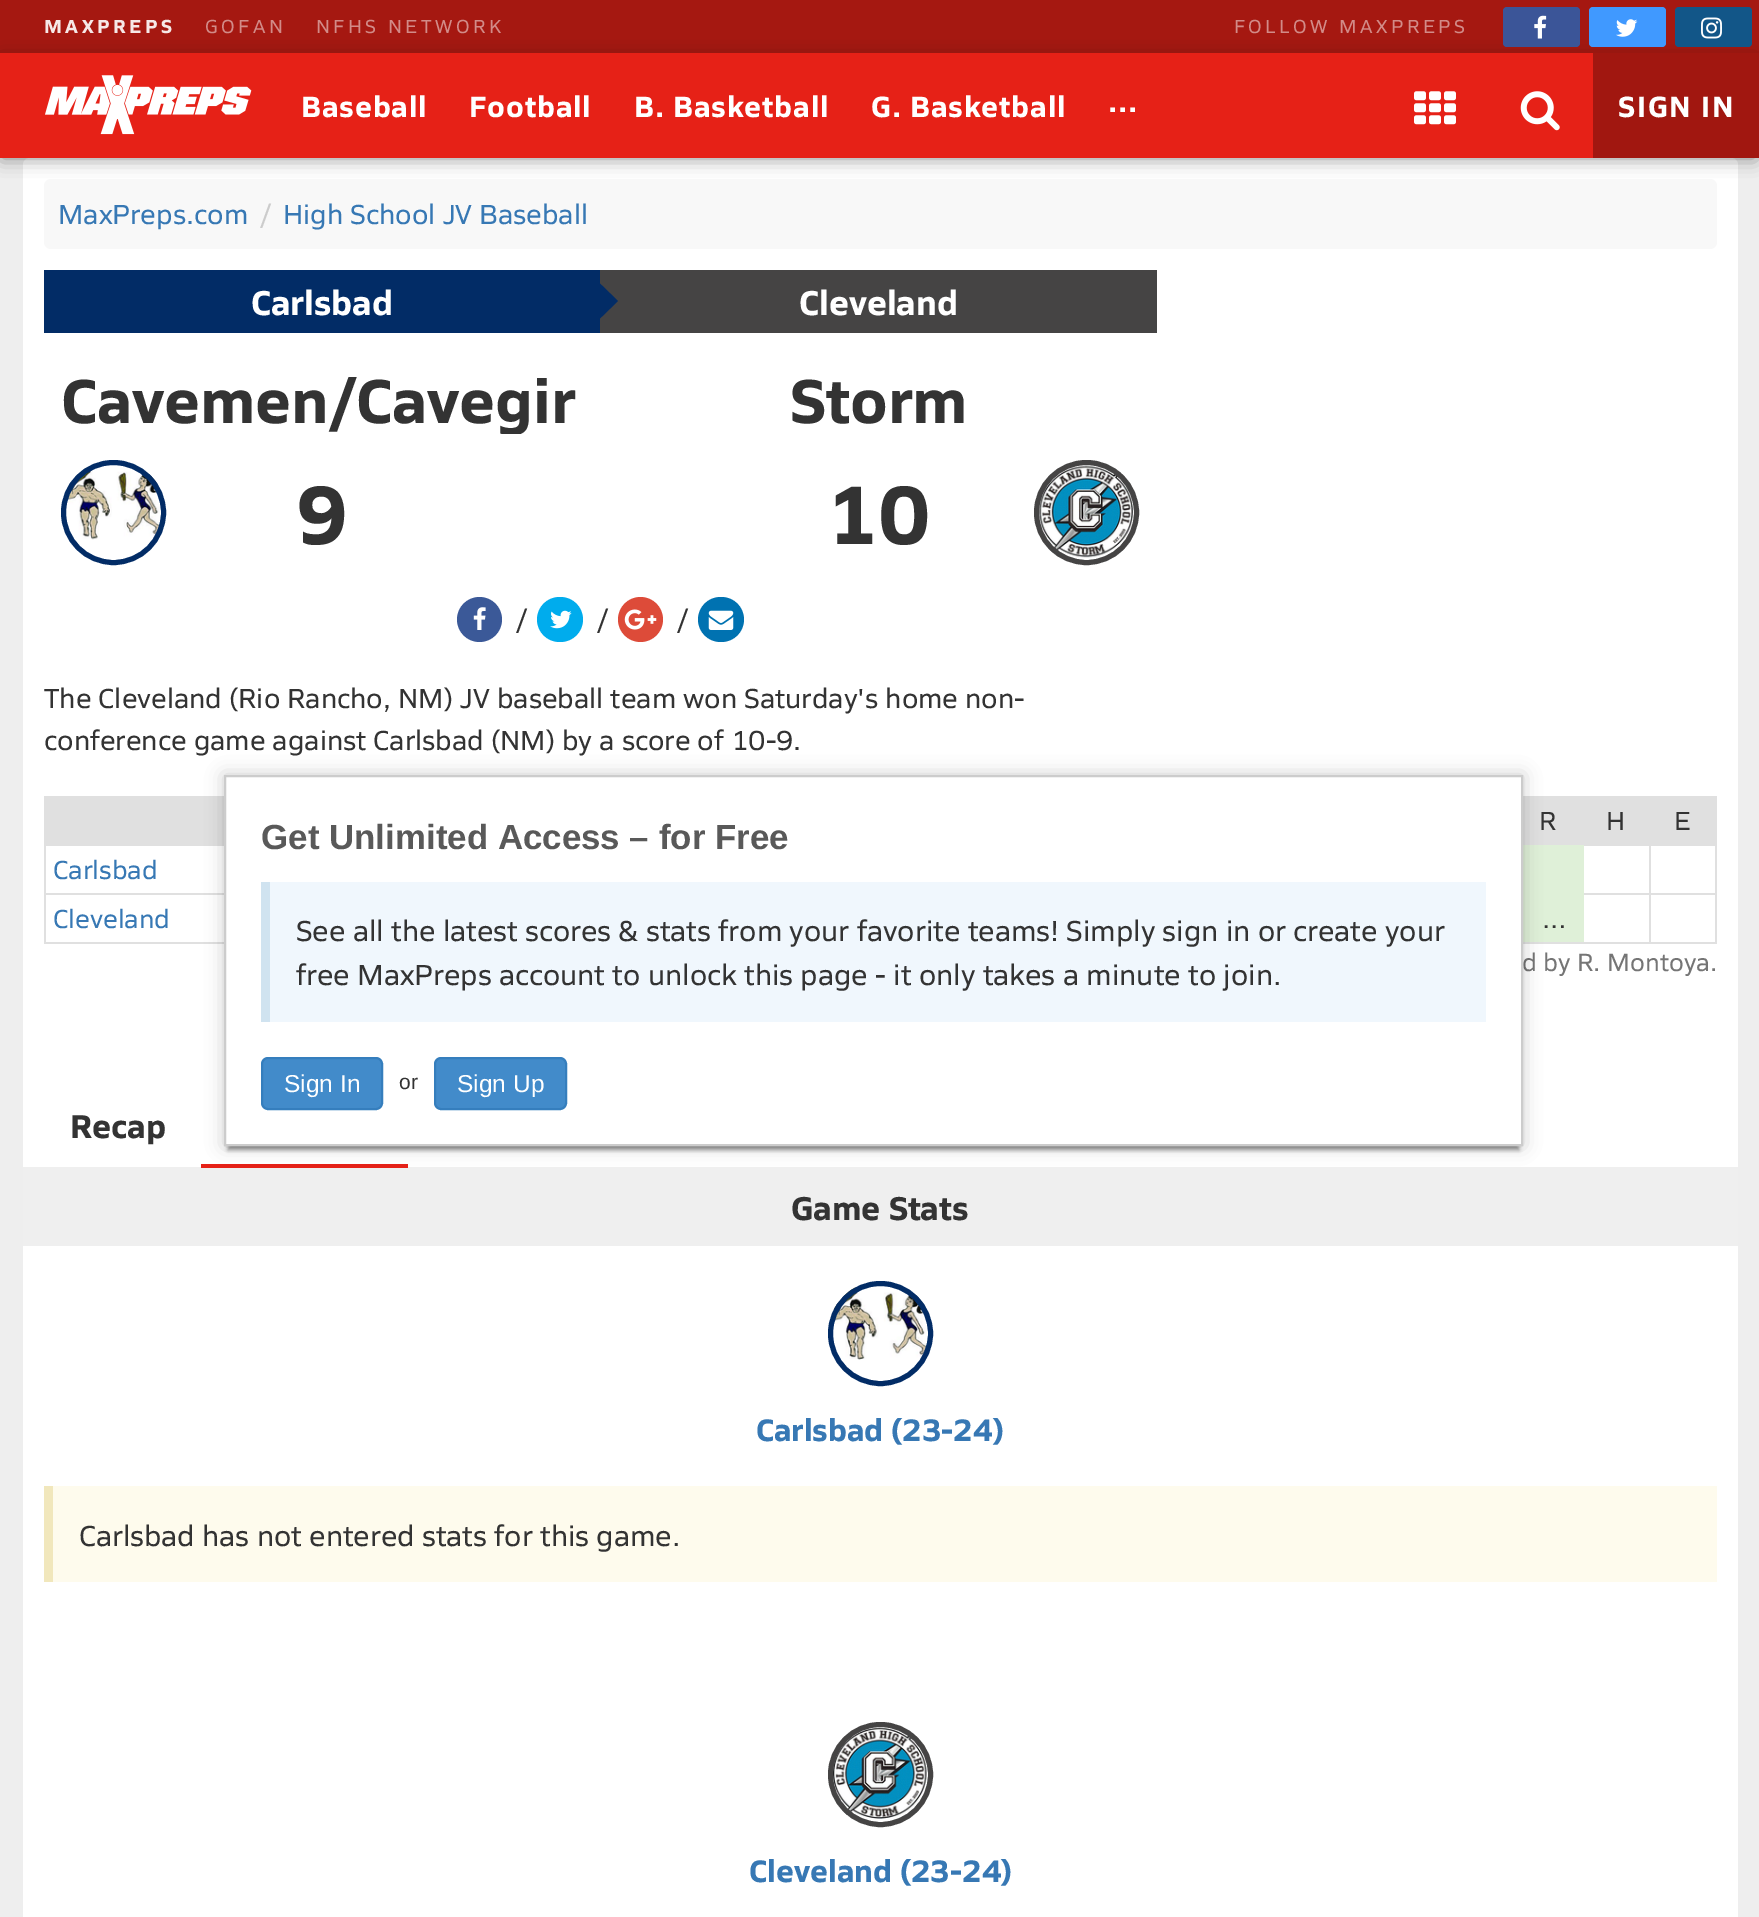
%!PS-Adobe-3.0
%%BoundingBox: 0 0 1759 1917
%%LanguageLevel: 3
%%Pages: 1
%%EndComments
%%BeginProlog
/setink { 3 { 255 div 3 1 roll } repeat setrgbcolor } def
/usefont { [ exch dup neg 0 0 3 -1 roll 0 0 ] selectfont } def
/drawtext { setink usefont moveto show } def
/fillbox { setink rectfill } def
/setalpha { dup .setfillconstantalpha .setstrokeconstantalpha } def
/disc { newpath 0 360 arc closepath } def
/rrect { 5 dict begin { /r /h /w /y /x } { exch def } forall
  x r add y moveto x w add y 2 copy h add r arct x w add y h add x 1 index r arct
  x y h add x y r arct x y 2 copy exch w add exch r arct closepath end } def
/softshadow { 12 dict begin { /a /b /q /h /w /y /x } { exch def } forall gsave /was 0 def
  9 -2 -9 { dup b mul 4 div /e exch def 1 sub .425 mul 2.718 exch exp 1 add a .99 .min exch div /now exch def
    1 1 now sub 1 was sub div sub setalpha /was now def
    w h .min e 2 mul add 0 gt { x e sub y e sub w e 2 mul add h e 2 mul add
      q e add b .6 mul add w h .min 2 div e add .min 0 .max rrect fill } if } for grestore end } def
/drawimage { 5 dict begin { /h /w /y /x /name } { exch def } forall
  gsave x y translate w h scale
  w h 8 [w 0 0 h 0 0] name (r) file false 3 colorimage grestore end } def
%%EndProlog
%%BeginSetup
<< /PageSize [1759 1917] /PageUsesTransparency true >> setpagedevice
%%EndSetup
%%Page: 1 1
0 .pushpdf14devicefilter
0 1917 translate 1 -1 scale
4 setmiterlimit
0 0 1759 1917 238 238 238 fillbox
0 0 1759 53 165 24 17 fillbox
255 255 255 setink
23 158 1715 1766 7 rrect fill
248 248 248 setink
44 179 1673 70 7 rrect fill
0 0 0 setink
2 60 1753 98 0 9 0.45 softshadow
/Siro-Bold 19.25 usefont
246 232 231 setink
44 33 moveto 3.5 0 (MAXPREPS) ashow
/Siro-Regular 19.25 usefont
210 139 136 setink
205 33 moveto 3.5 0 (GOFAN) ashow
316 33 moveto 3.5 0 (NFHS NETWORK) ashow
1234 33 moveto 3.5 0 (FOLLOW MAXPREPS) ashow
59 85 152 setink
1503 7 77 40 4 rrect fill
(assets/img1.rgb) 1534 15 13 24 drawimage
64 153 255 setink
1589 7 77 40 4 rrect fill
(assets/img2.rgb) 1616 19 22 18 drawimage
18 86 136 setink
1675 7 77 40 4 rrect fill
(assets/img3.rgb) 1701 17 21 22 drawimage
0 53 1593 105 230 33 23 fillbox
(assets/img4.rgb) 45 75 207 60 drawimage
/Siro-Bold 29.75 usefont
255 255 255 setink
301 117 moveto 0.9 0 (Baseball) ashow
469 117 moveto 0.9 0 (Football) ashow
634 117 moveto 0.9 0 (B. Basketball) ashow
871 117 moveto 0.9 0 (G. Basketball) ashow
1108 112 moveto 0.9 0 (...) ashow
(assets/img5.rgb) 1414 91 42 34 drawimage
(assets/img6.rgb) 1520 91 40 40 drawimage
1593 53 166 105 161 23 16 fillbox
255 255 255 setink
1618 117 moveto 1.75 0 (SIGN IN) ashow
(MaxPreps.com) 58 224 /Siro-Regular 28 55 120 180 drawtext
(/) 260 224 /Siro-Regular 28 204 204 204 drawtext
(High School JV Baseball) 283 224 /Siro-Regular 28 55 120 180 drawtext
44 270 556 63 2 44 102 fillbox
(Carlsbad) 251 315 /Siro-Bold 35 255 255 255 drawtext
600 270 557 63 69 68 68 fillbox
2 44 102 setink
586 332 moveto 586 270 lineto 618 301 lineto closepath fill
(Cleveland) 799 315 /Siro-Bold 35 255 255 255 drawtext
gsave
61 364 522 70 rectclip
(Cavemen/Cavegir) 61 423 /Siro-Bold 63 51 51 51 drawtext
grestore
(assets/img7.rgb) 66 466 95 74 drawimage
2 44 102 setink
5 setlinewidth
113.5 512.5 50 disc stroke
(9) 296 544 /Siro-Bold 84 51 51 51 drawtext
(Storm) 790 423 /Siro-Bold 63 51 51 51 drawtext
(10) 826 544 /Siro-Bold 84 51 51 51 drawtext
(assets/img8.rgb) 1039 465 95 93 drawimage
69 68 68 setink
1086.5 512.5 50 disc stroke
59 89 152 setink
479.5 619.5 22.5 disc fill
(assets/img9.rgb) 473 607 13 23 drawimage
(/) 516 629 /Siro-Regular 28 51 51 51 drawtext
0 172 237 setink
537 597 46 45 22.5 rrect fill
(assets/img10.rgb) 550 610 22 19 drawimage
(/) 597 629 /Siro-Regular 28 51 51 51 drawtext
221 75 57 setink
640.5 619.5 22.5 disc fill
(assets/img11.rgb) 624 609 33 21 drawimage
(/) 677 629 /Siro-Regular 28 51 51 51 drawtext
0 114 177 setink
698 597 46 45 22.5 rrect fill
(assets/img12.rgb) 708 610 26 20 drawimage
(The Cleveland \(Rio Rancho, NM\) JV baseball team won Saturday's home non-) 44 708 /Siro-Regular 28 51 51 51 drawtext
(conference game against Carlsbad \(NM\) by a score of 10-9.) 44 750 /Siro-Regular 28 51 51 51 drawtext
1715 846 2 97 224 224 224 fillbox
44 942 1673 2 224 224 224 fillbox
44 796 2 147 224 224 224 fillbox
46 796 178 48 224 224 224 fillbox
1649 845 68 1 224 224 224 fillbox
1649 893 68 2 224 224 224 fillbox
1649 893 2 50 224 224 224 fillbox
1582 893 68 2 224 224 224 fillbox
1649 844 2 50 224 224 224 fillbox
1523 796 194 49 224 224 224 fillbox
(R) 1539 830 /Siro-Regular 26.5 51 51 51 drawtext
(H) 1606 830 /Siro-Regular 26.5 51 51 51 drawtext
(E) 1674 830 /Siro-Regular 26.5 51 51 51 drawtext
1582 845 68 1 224 224 224 fillbox
1523 845 61 97 223 240 216 fillbox
44 844 180 2 224 224 224 fillbox
(Carlsbad) 53 879 /Siro-Regular 26.5 55 120 180 drawtext
44 893 180 2 224 224 224 fillbox
(Cleveland) 53 928 /Siro-Regular 26.5 55 120 180 drawtext
(…) 1542 928 /Siro-Regular 26.5 51 51 51 drawtext
(d by R. Montoya.) 1522 971 /Siro-Regular 25.25 117 117 117 drawtext
(Recap) 70 1138 /Siro-Bold 33.5 51 51 51 drawtext
23 1167 1715 79 239 239 239 fillbox
201 1164 207 4 230 33 23 fillbox
(Game Stats) 791 1220 /Siro-Bold 33.5 51 51 51 drawtext
(assets/img13.rgb) 833 1286 95 74 drawimage
2 44 102 setink
880.5 1333.5 50 disc stroke
(Carlsbad \(23-24\)) 756 1441 /Siro-Bold 31.5 55 120 180 drawtext
53 1486 1664 96 254 251 237 fillbox
44 1486 9 96 241 231 188 fillbox
(Carlsbad has not entered stats for this game.) 79 1546 /Siro-Regular 29.4 51 51 51 drawtext
(assets/img14.rgb) 833 1727 94 92 drawimage
69 68 68 setink
880.5 1774.5 50 disc stroke
(Cleveland \(23-24\)) 749 1882 /Siro-Bold 31.5 55 120 180 drawtext
0 0 0 setink
224 775 1299 371 0 9 0.2 softshadow
228 786 1291 364 0 2 0.4 softshadow
255 255 255 setink
225 776 moveto 1522 776 lineto 1522 1145 lineto 225 1145 lineto closepath gsave fill grestore
204 204 204 setink
2 setlinewidth
stroke
(Get Unlimited Access – for Free) 261 849 /LiberationSans-Bold 34.9 89 89 89 drawtext
270 882 1216 140 240 247 253 fillbox
261 882 9 140 208 227 240 fillbox
(See all the latest scores & stats from your favorite teams! Simply sign in or create your) 296 941 /Siro-Regular 29.4 51 51 51 drawtext
(free MaxPreps account to unlock this page - it only takes a minute to join.) 296 985 /Siro-Regular 29.4 51 51 51 drawtext
66 139 202 setink
262 1058 120 51 6 rrect gsave fill grestore
53 126 189 setink
stroke
(Sign In) 284 1092 /LiberationSans-Regular 24.5 255 255 255 drawtext
(or) 399 1089 /LiberationSans-Regular 21 51 51 51 drawtext
66 139 202 setink
435 1058 131 51 6 rrect gsave fill grestore
53 126 189 setink
stroke
(Sign Up) 457 1092 /LiberationSans-Regular 24.5 255 255 255 drawtext
.poppdf14devicefilter showpage
%%EOF
